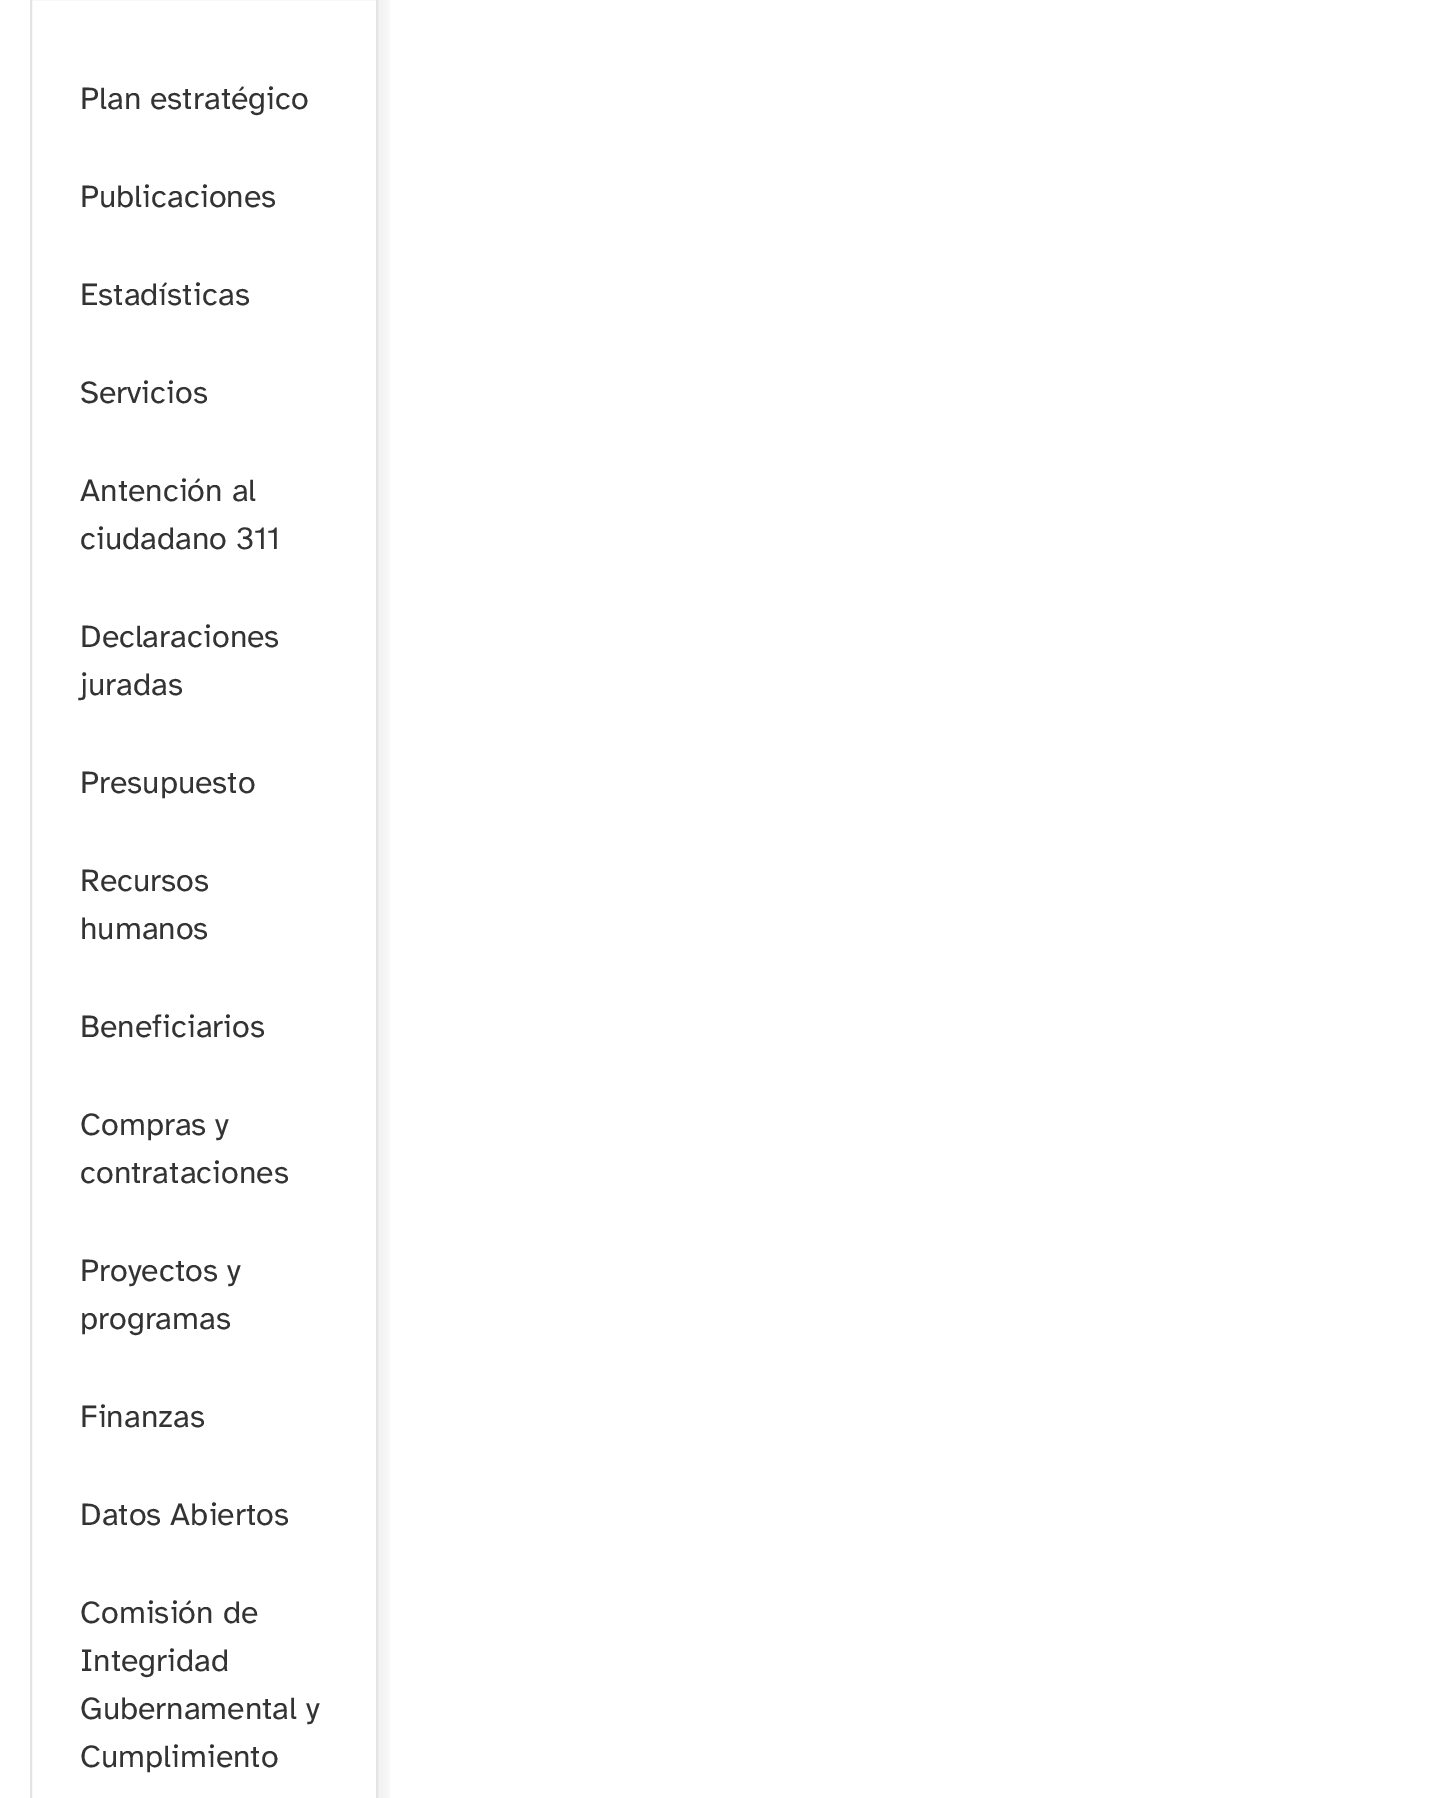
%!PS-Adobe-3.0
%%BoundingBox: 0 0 1452 1798
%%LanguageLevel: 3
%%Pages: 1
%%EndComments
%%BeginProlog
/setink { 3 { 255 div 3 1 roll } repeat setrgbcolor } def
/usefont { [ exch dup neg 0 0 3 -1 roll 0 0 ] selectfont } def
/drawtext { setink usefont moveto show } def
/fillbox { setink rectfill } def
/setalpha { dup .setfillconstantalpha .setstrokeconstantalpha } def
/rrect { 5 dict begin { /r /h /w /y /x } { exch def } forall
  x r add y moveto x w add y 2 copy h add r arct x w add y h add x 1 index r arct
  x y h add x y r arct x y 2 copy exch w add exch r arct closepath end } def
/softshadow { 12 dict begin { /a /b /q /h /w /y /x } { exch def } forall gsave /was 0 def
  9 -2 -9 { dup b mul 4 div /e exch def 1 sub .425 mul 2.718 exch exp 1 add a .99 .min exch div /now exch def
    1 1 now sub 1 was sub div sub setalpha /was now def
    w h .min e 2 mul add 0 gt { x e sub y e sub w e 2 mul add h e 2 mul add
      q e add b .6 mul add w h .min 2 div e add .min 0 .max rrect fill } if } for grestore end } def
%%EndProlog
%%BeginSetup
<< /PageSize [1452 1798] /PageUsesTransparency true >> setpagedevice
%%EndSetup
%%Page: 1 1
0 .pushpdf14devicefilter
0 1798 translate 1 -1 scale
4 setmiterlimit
0 0 1452 1798 255 255 255 fillbox
gsave
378 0 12 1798 rectclip
0 0 0 setink
40 -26 348 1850 8 6 0.05 softshadow
grestore
228 228 228 setink
2 setlinewidth
31 -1 346 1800 rectstroke
(Plan estratégico) 80 109 /AtkinsonHyperlegible-Regular 32 51 51 51 drawtext
(Publicaciones) 80 207 /AtkinsonHyperlegible-Regular 32 51 51 51 drawtext
(Estadísticas) 80 305 /AtkinsonHyperlegible-Regular 32 51 51 51 drawtext
(Servicios) 80 403 /AtkinsonHyperlegible-Regular 32 51 51 51 drawtext
(Antención al) 80 501 /AtkinsonHyperlegible-Regular 32 51 51 51 drawtext
(ciudadano 311) 80 549 /AtkinsonHyperlegible-Regular 32 51 51 51 drawtext
(Declaraciones) 80 647 /AtkinsonHyperlegible-Regular 32 51 51 51 drawtext
(juradas) 80 695 /AtkinsonHyperlegible-Regular 32 51 51 51 drawtext
(Presupuesto) 80 793 /AtkinsonHyperlegible-Regular 32 51 51 51 drawtext
(Recursos) 80 891 /AtkinsonHyperlegible-Regular 32 51 51 51 drawtext
(humanos) 80 939 /AtkinsonHyperlegible-Regular 32 51 51 51 drawtext
(Beneficiarios) 80 1037 /AtkinsonHyperlegible-Regular 32 51 51 51 drawtext
(Compras y) 80 1135 /AtkinsonHyperlegible-Regular 32 51 51 51 drawtext
(contrataciones) 80 1183 /AtkinsonHyperlegible-Regular 32 51 51 51 drawtext
(Proyectos y) 80 1281 /AtkinsonHyperlegible-Regular 32 51 51 51 drawtext
(programas) 80 1329 /AtkinsonHyperlegible-Regular 32 51 51 51 drawtext
(Finanzas) 80 1427 /AtkinsonHyperlegible-Regular 32 51 51 51 drawtext
(Datos Abiertos) 80 1525 /AtkinsonHyperlegible-Regular 32 51 51 51 drawtext
(Comisión de) 80 1623 /AtkinsonHyperlegible-Regular 32 51 51 51 drawtext
(Integridad) 80 1671 /AtkinsonHyperlegible-Regular 32 51 51 51 drawtext
(Gubernamental y) 80 1719 /AtkinsonHyperlegible-Regular 32 51 51 51 drawtext
(Cumplimiento) 80 1767 /AtkinsonHyperlegible-Regular 32 51 51 51 drawtext
.poppdf14devicefilter showpage
%%EOF
